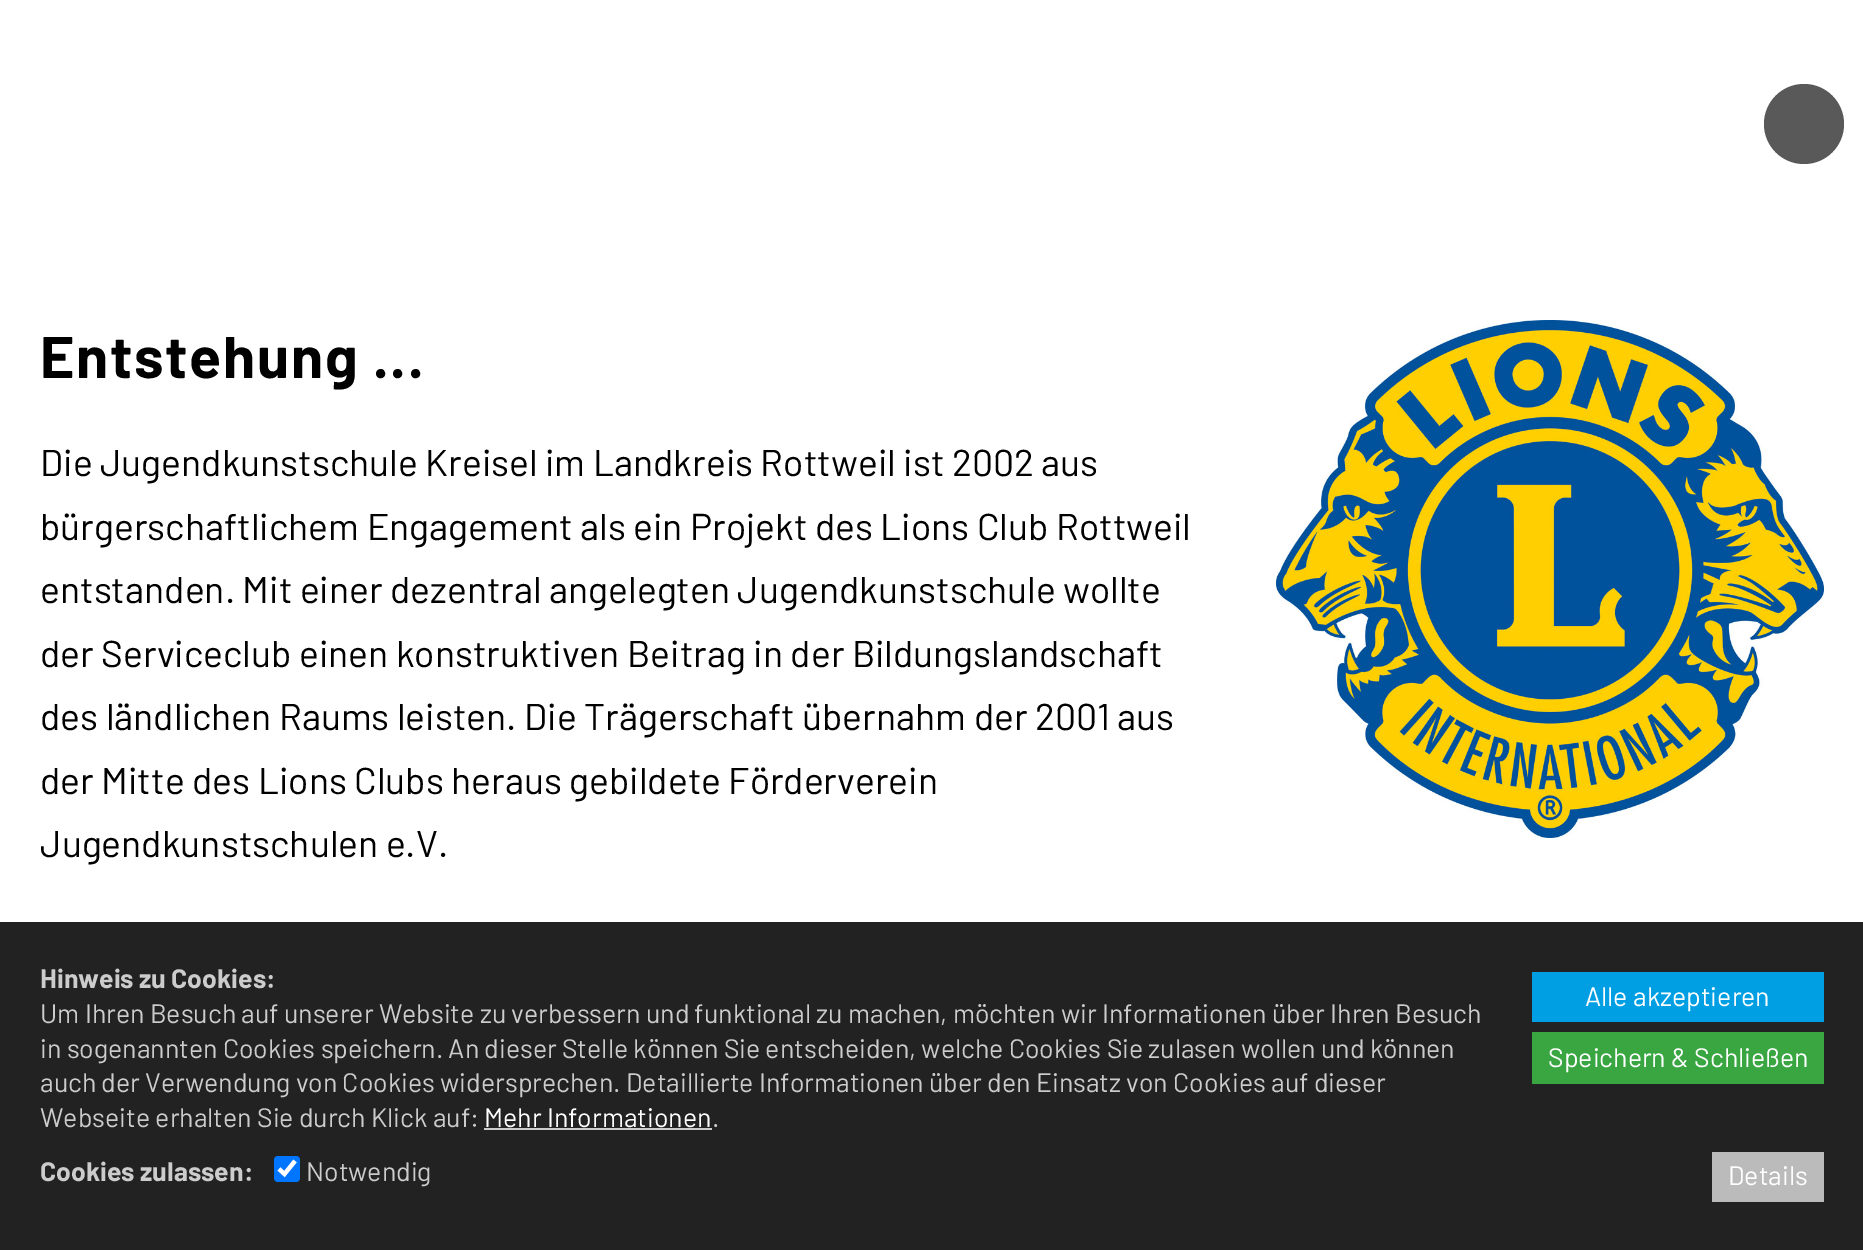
%!PS-Adobe-3.0
%%BoundingBox: 0 0 1863 1250
%%LanguageLevel: 3
%%Pages: 1
%%EndComments
%%BeginProlog
/setink { 3 { 255 div 3 1 roll } repeat setrgbcolor } def
/usefont { [ exch dup neg 0 0 3 -1 roll 0 0 ] selectfont } def
/drawtext { setink usefont moveto show } def
/fillbox { setink rectfill } def
/disc { newpath 0 360 arc closepath } def
/rrect { 5 dict begin { /r /h /w /y /x } { exch def } forall
  x r add y moveto x w add y 2 copy h add r arct x w add y h add x 1 index r arct
  x y h add x y r arct x y 2 copy exch w add exch r arct closepath end } def
/drawimage { 5 dict begin { /h /w /y /x /name } { exch def } forall
  gsave x y translate w h scale
  w h 8 [w 0 0 h 0 0] name (r) file false 3 colorimage grestore end } def
%%EndProlog
%%BeginSetup
<< /PageSize [1863 1250] >> setpagedevice
%%EndSetup
%%Page: 1 1
0 1250 translate 1 -1 scale
4 setmiterlimit
0 0 1863 1250 255 255 255 fillbox
90 89 89 setink
1804 124 40 disc fill
/Barlow-Bold 58.75 usefont
0 0 0 setink
40 378 moveto 1.75 0 (Entstehung ...) ashow
(Die Jugendkunstschule Kreisel im Landkreis Rottweil ist 2002 aus) 40 476 /Barlow-Regular 37.3 0 0 0 drawtext
(bürgerschaftlichem Engagement als ein Projekt des Lions Club Rottweil) 40 540 /Barlow-Regular 37.3 0 0 0 drawtext
(entstanden. Mit einer dezentral angelegten Jugendkunstschule wollte) 40 603 /Barlow-Regular 37.3 0 0 0 drawtext
(der Serviceclub einen konstruktiven Beitrag in der Bildungslandschaft) 40 667 /Barlow-Regular 37.3 0 0 0 drawtext
(des ländlichen Raums leisten. Die Trägerschaft übernahm der 2001 aus) 40 730 /Barlow-Regular 37.3 0 0 0 drawtext
(der Mitte des Lions Clubs heraus gebildete Förderverein) 40 794 /Barlow-Regular 37.3 0 0 0 drawtext
(Jugendkunstschulen e.V.) 40 857 /Barlow-Regular 37.3 0 0 0 drawtext
(assets/img1.rgb) 1276 320 548 518 drawimage
0 922 1863 328 34 34 34 fillbox
(Hinweis zu Cookies:) 40 988 /Barlow-Bold 26.67 204 204 204 drawtext
(Um Ihren Besuch auf unserer Website zu verbessern und funktional zu machen, möchten wir Informationen über Ihren Besuch) 40 1023 /Barlow-Regular 26.67 204 204 204 drawtext
(in sogenannten Cookies speichern. An dieser Stelle können Sie entscheiden, welche Cookies Sie zulasen wollen und können) 40 1058 /Barlow-Regular 26.67 204 204 204 drawtext
(auch der Verwendung von Cookies widersprechen. Detaillierte Informationen über den Einsatz von Cookies auf dieser) 40 1092 /Barlow-Regular 26.67 204 204 204 drawtext
(Webseite erhalten Sie durch Klick auf:) 40 1127 /Barlow-Regular 26.67 204 204 204 drawtext
(Mehr Informationen) 484 1127 /Barlow-Regular 26.67 255 255 255 drawtext
484 1128 228 2 204 204 204 fillbox
(.) 712 1127 /Barlow-Regular 26.67 204 204 204 drawtext
1532 972 292 50 0 159 227 fillbox
(Alle akzeptieren) 1585 1006 /Barlow-Regular 26.67 255 255 255 drawtext
1532 1032 292 52 57 166 66 fillbox
(Speichern & Schließen) 1548 1067 /Barlow-Regular 26.67 255 255 255 drawtext
(Cookies zulassen:) 40 1181 /Barlow-Bold 26.67 204 204 204 drawtext
0 117 255 setink
274 1156 26 26 4 rrect fill
255 255 255 setink
4.2 setlinewidth
279 1169 moveto 284.5 1174 lineto 295 1161 lineto stroke
(Notwendig) 306 1181 /Barlow-Regular 26.67 204 204 204 drawtext
1712 1152 112 50 187 187 187 fillbox
(Details) 1728 1185 /Barlow-Regular 26.67 255 255 255 drawtext
showpage
%%EOF
